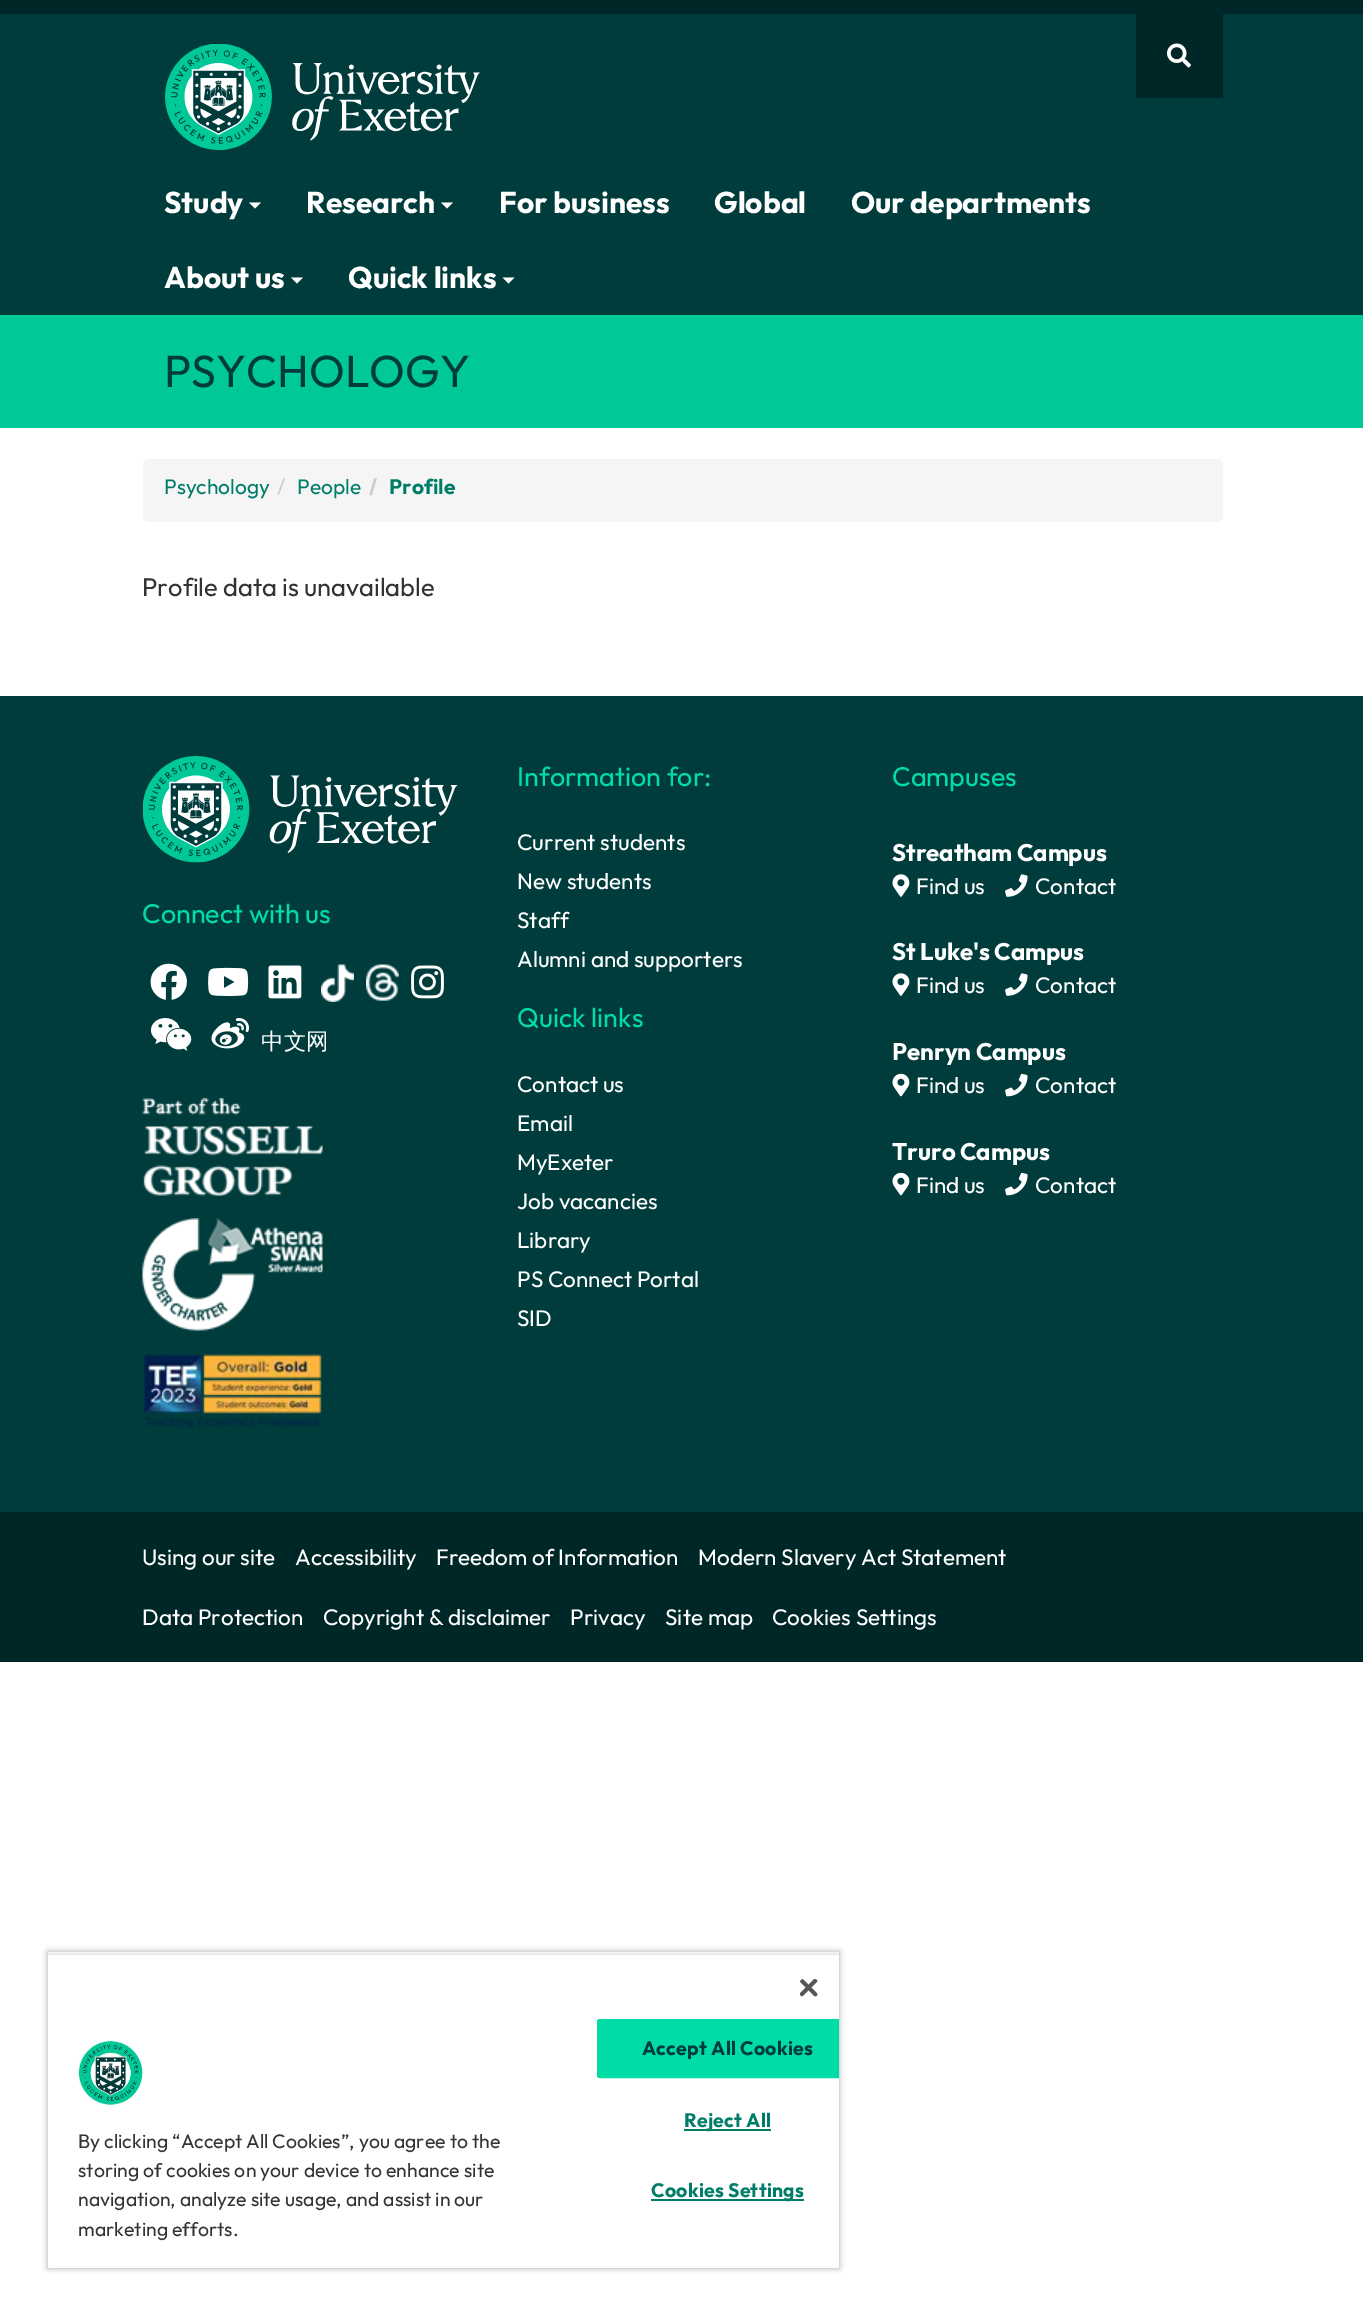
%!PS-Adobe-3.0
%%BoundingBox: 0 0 1363 2315
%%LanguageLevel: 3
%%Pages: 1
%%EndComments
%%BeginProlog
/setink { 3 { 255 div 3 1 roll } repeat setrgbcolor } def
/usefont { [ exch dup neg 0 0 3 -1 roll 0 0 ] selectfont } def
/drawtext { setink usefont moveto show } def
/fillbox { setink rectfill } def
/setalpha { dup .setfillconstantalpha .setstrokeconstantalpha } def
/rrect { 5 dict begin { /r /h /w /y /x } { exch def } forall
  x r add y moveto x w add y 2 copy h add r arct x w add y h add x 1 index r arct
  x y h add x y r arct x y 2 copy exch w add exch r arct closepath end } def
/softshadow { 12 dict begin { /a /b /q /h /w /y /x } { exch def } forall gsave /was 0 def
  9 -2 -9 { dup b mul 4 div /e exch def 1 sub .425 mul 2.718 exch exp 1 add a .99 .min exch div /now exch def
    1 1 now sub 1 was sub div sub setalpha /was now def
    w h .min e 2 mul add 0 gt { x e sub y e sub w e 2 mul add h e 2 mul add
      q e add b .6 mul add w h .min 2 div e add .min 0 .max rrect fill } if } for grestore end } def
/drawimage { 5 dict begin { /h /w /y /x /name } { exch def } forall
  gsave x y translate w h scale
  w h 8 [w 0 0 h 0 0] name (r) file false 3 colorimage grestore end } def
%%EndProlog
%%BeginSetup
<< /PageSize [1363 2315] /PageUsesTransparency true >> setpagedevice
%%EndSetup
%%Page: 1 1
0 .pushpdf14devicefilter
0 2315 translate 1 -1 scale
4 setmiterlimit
0 0 1363 2315 255 255 255 fillbox
0 14 1363 301 0 60 60 fillbox
0 0 1363 14 0 39 39 fillbox
(assets/img1.rgb) 165 44 315 106 drawimage
1136 14 87 84 0 39 39 fillbox
(assets/img2.rgb) 1167 43 24 25 drawimage
(Study) 164 213 /Outfit-Thin 30 255 255 255 drawtext
249 202.5 moveto 261 202.5 lineto 255 208.5 lineto closepath fill
(Research) 306 213 /Outfit-Thin 30 255 255 255 drawtext
441 202.5 moveto 453 202.5 lineto 447 208.5 lineto closepath fill
(For business) 499 213 /Outfit-Thin 30 255 255 255 drawtext
(Global) 714 213 /Outfit-Thin 30 255 255 255 drawtext
(Our departments) 851 213 /Outfit-Thin 30 255 255 255 drawtext
(About us) 164 288 /Outfit-Thin 30 255 255 255 drawtext
291 277.5 moveto 303 277.5 lineto 297 283.5 lineto closepath fill
(Quick links) 348 288 /Outfit-Thin 30 255 255 255 drawtext
502.5 277.5 moveto 514.5 277.5 lineto 508.5 283.5 lineto closepath fill
0 315 1363 113 0 200 150 fillbox
(PSYCHOLOGY) 164 387 /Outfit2-Thin 45 0 60 60 drawtext
245 245 245 setink
143 459 1080 63 6 rrect fill
(Psychology) 164 494 /Outfit2-Thin 21 0 125 105 drawtext
(/) 277 494 /Outfit2-Thin 21 204 204 204 drawtext
(People) 297 494 /Outfit2-Thin 21 0 125 105 drawtext
(/) 369 494 /Outfit-Thin 21 204 204 204 drawtext
(Profile) 389 494 /Outfit-Thin 21 0 125 105 drawtext
(Profile data is unavailable) 142 596 /Outfit2-Thin 25.5 51 51 51 drawtext
0 696 1363 816 0 60 60 fillbox
(assets/img3.rgb) 143 756 315 107 drawimage
(Connect with us) 142 923 /Outfit2-Thin 27 0 221 165 drawtext
(assets/img4.rgb) 150 963 37 37 drawimage
(assets/img5.rgb) 208 967 41 29 drawimage
(assets/img6.rgb) 268 965 34 34 drawimage
(assets/img7.rgb) 321 964 33 38 drawimage
(assets/img8.rgb) 366 964 33 37 drawimage
(assets/img9.rgb) 411 965 33 34 drawimage
(assets/img10.rgb) 150 1018 42 33 drawimage
(assets/img11.rgb) 211 1018 38 31 drawimage
(中文网) 261 1049 /WenQuanYiZenHei-Medium 22.5 255 255 255 drawtext
(assets/img12.rgb) 142 1098 181 98 drawimage
(assets/img13.rgb) 142 1218 181 113 drawimage
(assets/img14.rgb) 144 1354 178 74 drawimage
(Information for:) 517 786 /Outfit2-Thin 27 0 221 165 drawtext
(Current students) 517 850 /Outfit2-Thin 22.5 255 255 255 drawtext
(New students) 517 889 /Outfit2-Thin 22.5 255 255 255 drawtext
(Staff) 517 928 /Outfit2-Thin 22.5 255 255 255 drawtext
(Alumni and supporters) 517 967 /Outfit2-Thin 22.5 255 255 255 drawtext
(Quick links) 517 1027 /Outfit2-Thin 27 0 221 165 drawtext
(Contact us) 517 1092 /Outfit2-Thin 22.5 255 255 255 drawtext
(Email) 517 1131 /Outfit2-Thin 22.5 255 255 255 drawtext
(MyExeter) 517 1170 /Outfit2-Thin 22.5 255 255 255 drawtext
(Job vacancies) 517 1209 /Outfit2-Thin 22.5 255 255 255 drawtext
(Library) 517 1248 /Outfit2-Thin 22.5 255 255 255 drawtext
(PS Connect Portal) 517 1287 /Outfit2-Thin 22.5 255 255 255 drawtext
(SID) 517 1326 /Outfit2-Thin 22.5 255 255 255 drawtext
(Campuses) 892 786 /Outfit2-Thin 27 0 221 165 drawtext
(Streatham Campus) 892 861 /Outfit-Thin 24 255 255 255 drawtext
(assets/img15.rgb) 892 874 18 23 drawimage
(Find us) 916 894 /Outfit2-Thin 22.5 255 255 255 drawtext
(assets/img16.rgb) 1005 874 23 23 drawimage
(Contact) 1035 894 /Outfit2-Thin 22.5 255 255 255 drawtext
(St Luke's Campus) 892 960 /Outfit-Thin 24 255 255 255 drawtext
(assets/img15.rgb) 892 973 18 23 drawimage
(Find us) 916 993 /Outfit2-Thin 22.5 255 255 255 drawtext
(assets/img16.rgb) 1005 973 23 23 drawimage
(Contact) 1035 993 /Outfit2-Thin 22.5 255 255 255 drawtext
(Penryn Campus) 892 1060 /Outfit-Thin 24 255 255 255 drawtext
(assets/img17.rgb) 892 1073 18 24 drawimage
(Find us) 916 1093 /Outfit2-Thin 22.5 255 255 255 drawtext
(assets/img18.rgb) 1005 1073 23 24 drawimage
(Contact) 1035 1093 /Outfit2-Thin 22.5 255 255 255 drawtext
(Truro Campus) 892 1160 /Outfit-Thin 24 255 255 255 drawtext
(assets/img17.rgb) 892 1172 18 24 drawimage
(Find us) 916 1193 /Outfit2-Thin 22.5 255 255 255 drawtext
(assets/img18.rgb) 1005 1172 23 24 drawimage
(Contact) 1035 1193 /Outfit2-Thin 22.5 255 255 255 drawtext
0 1512 1363 150 0 39 39 fillbox
(Using our site) 142 1565 /Outfit2-Thin 22.5 255 255 255 drawtext
(Accessibility) 295 1565 /Outfit2-Thin 22.5 255 255 255 drawtext
(Freedom of Information) 436 1565 /Outfit2-Thin 22.5 255 255 255 drawtext
(Modern Slavery Act Statement) 698 1565 /Outfit2-Thin 22.5 255 255 255 drawtext
(Data Protection) 142 1625 /Outfit2-Thin 22.5 255 255 255 drawtext
(Copyright & disclaimer) 323 1625 /Outfit2-Thin 22.5 255 255 255 drawtext
(Privacy) 570 1625 /Outfit2-Thin 22.5 255 255 255 drawtext
(Site map) 665 1625 /Outfit2-Thin 22.5 255 255 255 drawtext
(Cookies Settings) 772 1625 /Outfit2-Thin 22.5 255 255 255 drawtext
gsave
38 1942 moveto 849 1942 lineto 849 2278 lineto 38 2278 lineto closepath 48 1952 moveto 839 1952 lineto 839 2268 lineto 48 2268 lineto closepath eoclip newpath
0 0 0 setink
48 1952 791 316 0 3 0.35 softshadow
grestore
gsave
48 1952 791 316 rectclip
0 0 0 setink
48 1955 791 313 0 3 0.2 softshadow
grestore
48 1955 791 313 255 255 255 fillbox
(assets/img19.rgb) 800 1979 18 18 drawimage
(assets/img20.rgb) 78 2040 66 66 drawimage
(By clicking “Accept All Cookies”, you agree to the) 78 2148 /Outfit2-Thin 19.5 51 51 51 drawtext
(storing of cookies on your device to enhance site) 78 2177 /Outfit2-Thin 19.5 51 51 51 drawtext
(navigation, analyze site usage, and assist in our) 78 2206 /Outfit2-Thin 19.5 51 51 51 drawtext
(marketing efforts.) 78 2236 /Outfit2-Thin 19.5 51 51 51 drawtext
0 220 165 setink
600 2019 moveto 839 2019 lineto 839 2078 lineto 600 2078 lineto 598.5 2078 597 2076.5 597 2075 curveto 597 2022 lineto 597 2020.5 598.5 2019 600 2019 curveto closepath fill
gsave
48 1952 791 316 rectclip
2 setlinewidth
598 2020 261 57 2 rrect stroke
grestore
/Outfit-Thin 19.5 usefont
0 60 60 setink
642 2055 moveto 0.25 0 (Accept All Cookies) ashow
684 2129 87 2 0 125 105 fillbox
684 2127 moveto 0.25 0 (Reject All) ashow
651 2199 153 2 0 125 105 fillbox
651 2197 moveto 0.25 0 (Cookies Settings) ashow
.poppdf14devicefilter showpage
%%EOF
